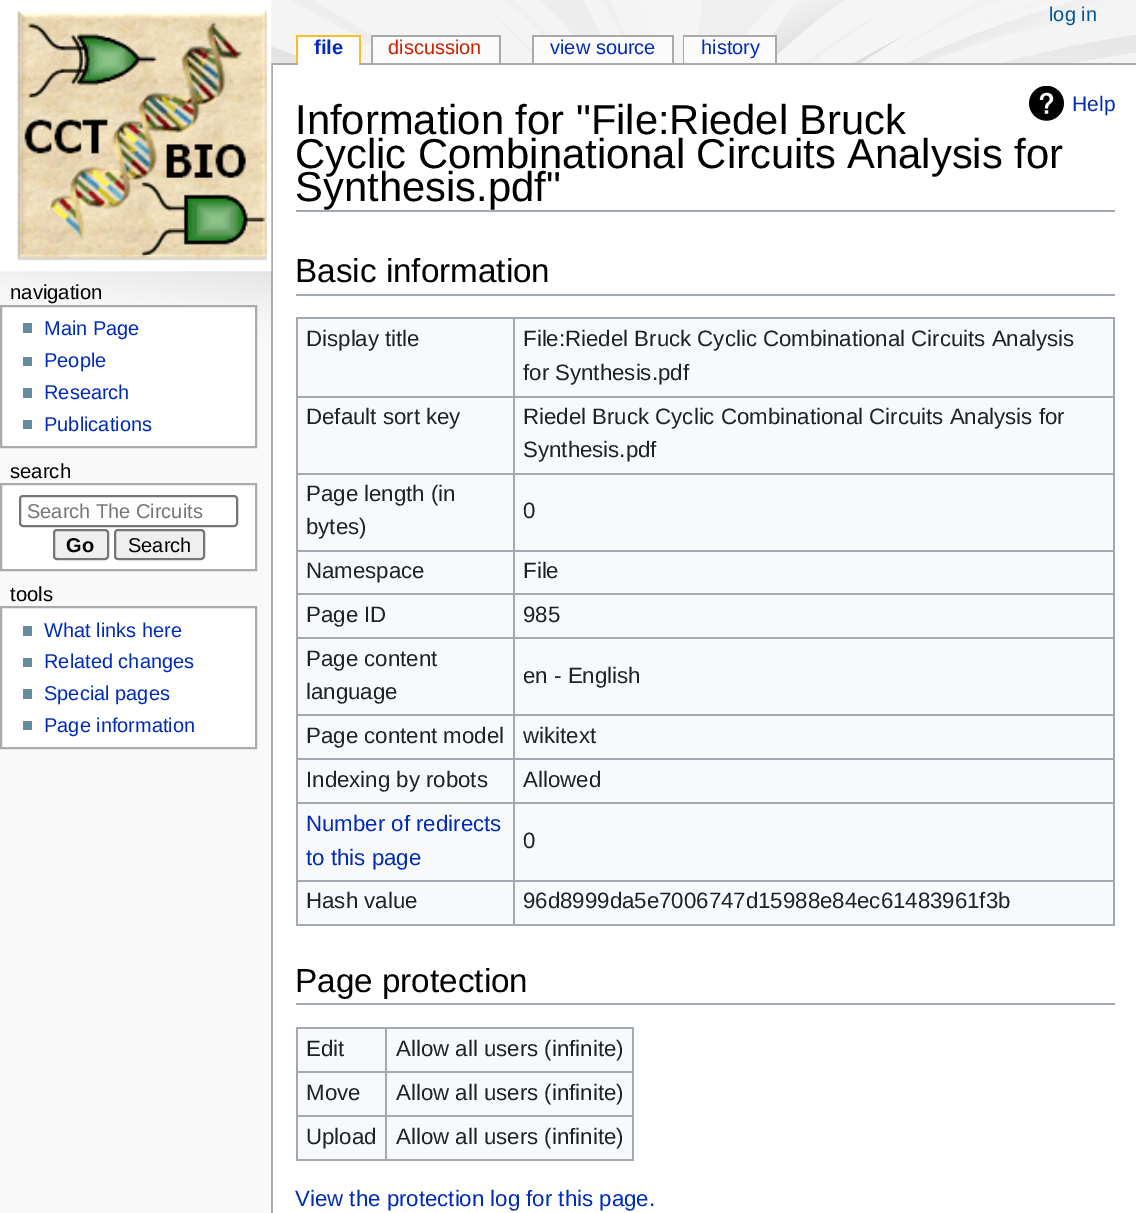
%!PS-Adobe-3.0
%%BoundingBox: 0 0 1136 1213
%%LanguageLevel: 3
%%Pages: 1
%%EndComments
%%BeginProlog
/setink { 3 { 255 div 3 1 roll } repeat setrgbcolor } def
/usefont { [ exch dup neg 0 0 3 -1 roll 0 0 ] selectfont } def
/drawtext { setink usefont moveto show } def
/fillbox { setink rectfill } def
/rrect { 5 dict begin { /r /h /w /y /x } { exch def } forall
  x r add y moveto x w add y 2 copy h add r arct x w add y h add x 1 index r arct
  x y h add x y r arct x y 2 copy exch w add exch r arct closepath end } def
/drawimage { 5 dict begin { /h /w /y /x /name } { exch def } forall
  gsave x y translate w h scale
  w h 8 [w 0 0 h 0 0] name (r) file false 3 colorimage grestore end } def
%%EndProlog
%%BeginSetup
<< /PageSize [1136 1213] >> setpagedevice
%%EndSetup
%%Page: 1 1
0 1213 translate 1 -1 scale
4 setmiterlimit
0 0 1136 1213 249 249 249 fillbox
(assets/img1.rgb) 0 0 1136 367 drawimage
271 63 865 2 170 170 170 fillbox
271 63 2 1150 170 170 170 fillbox
(assets/img2.rgb) 0 0 272 272 drawimage
(log in) 1049 21 /LiberationSans-Regular 20 0 88 150 drawtext
298 37 61 28 255 255 255 fillbox
(file) 314 54 /LiberationSans-Bold 20 0 43 184 drawtext
296 35 65 2 250 189 35 fillbox
359 35 2 28 250 189 35 fillbox
296 35 2 28 250 189 35 fillbox
373 37 126 26 251 251 251 fillbox
(discussion) 388 54 /LiberationSans-Regular 20 204 34 0 drawtext
371 35 130 2 170 170 170 fillbox
499 35 2 28 170 170 170 fillbox
371 35 2 28 170 170 170 fillbox
534 37 138 26 251 251 251 fillbox
(view source) 550 54 /LiberationSans-Regular 20 0 43 184 drawtext
532 35 142 2 170 170 170 fillbox
672 35 2 28 170 170 170 fillbox
532 35 2 28 170 170 170 fillbox
683 35 94 2 170 170 170 fillbox
683 35 2 28 170 170 170 fillbox
684 37 91 26 251 251 251 fillbox
(history) 701 54 /LiberationSans-Regular 20 0 43 184 drawtext
775 35 2 28 170 170 170 fillbox
(navigation) 10 299 /LiberationSans-Regular 20.25 0 0 0 drawtext
255 255 255 setink
1 306 moveto 256 306 lineto 256 447 lineto 1 447 lineto closepath gsave fill grestore
170 170 170 setink
2 setlinewidth
stroke
23 323 9 10 99 140 156 fillbox
(Main Page) 44 335 /LiberationSans-Regular 20 0 43 184 drawtext
23 357 9 9 99 140 156 fillbox
(People) 44 367 /LiberationSans-Regular 20 0 43 184 drawtext
23 388 9 10 99 140 156 fillbox
(Research) 44 399 /LiberationSans-Regular 20 0 43 184 drawtext
23 420 9 9 99 140 156 fillbox
(Publications) 44 431 /LiberationSans-Regular 20 0 43 184 drawtext
(search) 10 478 /LiberationSans-Regular 20.25 0 0 0 drawtext
255 255 255 setink
1 484 moveto 256 484 lineto 256 570 lineto 1 570 lineto closepath gsave fill grestore
170 170 170 setink
stroke
118 118 118 setink
20 496 217 30 3 rrect stroke
(Search The Circuits) 27 518 /LiberationSans-Regular 20 117 117 117 drawtext
239 239 239 setink
54 530 54 29 3 rrect gsave fill grestore
118 118 118 setink
stroke
(Go) 66 552 /LiberationSans-Bold 20 0 0 0 drawtext
239 239 239 setink
115 530 89 29 3 rrect gsave fill grestore
118 118 118 setink
stroke
(Search) 128 552 /LiberationSans-Regular 20 0 0 0 drawtext
(tools) 10 601 /LiberationSans-Regular 20.25 0 0 0 drawtext
255 255 255 setink
1 607 moveto 256 607 lineto 256 748 lineto 1 748 lineto closepath gsave fill grestore
170 170 170 setink
stroke
23 626 9 10 99 140 156 fillbox
(What links here) 44 637 /LiberationSans-Regular 20 0 43 184 drawtext
23 658 9 9 99 140 156 fillbox
(Related changes) 44 668 /LiberationSans-Regular 20 0 43 184 drawtext
23 689 9 10 99 140 156 fillbox
(Special pages) 44 700 /LiberationSans-Regular 20 0 43 184 drawtext
23 721 9 9 99 140 156 fillbox
(Page information) 44 732 /LiberationSans-Regular 20 0 43 184 drawtext
273 65 863 1148 255 255 255 fillbox
296 210 819 2 162 169 177 fillbox
(Information for "File:Riedel Bruck) 295 134 /LiberationSans-Regular 41.75 0 0 0 drawtext
(Cyclic Combinational Circuits Analysis for) 295 168 /LiberationSans-Regular 41.75 0 0 0 drawtext
(Synthesis.pdf") 295 201 /LiberationSans-Regular 41.75 0 0 0 drawtext
(assets/img3.rgb) 1029 86 35 35 drawimage
(Help) 1072 111 /LiberationSans-Regular 21 0 43 184 drawtext
296 294 819 2 162 169 177 fillbox
(Basic information) 295 282 /LiberationSans-Regular 33.25 0 0 0 drawtext
298 319 815 605 248 249 250 fillbox
296 317 819 2 162 169 177 fillbox
1113 317 2 609 162 169 177 fillbox
296 924 819 2 162 169 177 fillbox
296 317 2 609 162 169 177 fillbox
(Display title) 306 346 /LiberationSans-Regular 22.25 32 33 34 drawtext
513 396 602 2 162 169 177 fillbox
513 473 602 2 162 169 177 fillbox
513 550 602 2 162 169 177 fillbox
513 593 602 2 162 169 177 fillbox
513 637 602 2 162 169 177 fillbox
513 714 602 2 162 169 177 fillbox
513 758 602 2 162 169 177 fillbox
513 802 602 2 162 169 177 fillbox
513 880 602 2 162 169 177 fillbox
513 880 2 46 162 169 177 fillbox
296 880 219 2 162 169 177 fillbox
513 802 2 80 162 169 177 fillbox
296 802 219 2 162 169 177 fillbox
513 758 2 45 162 169 177 fillbox
296 758 219 2 162 169 177 fillbox
513 714 2 46 162 169 177 fillbox
296 714 219 2 162 169 177 fillbox
513 637 2 79 162 169 177 fillbox
296 637 219 2 162 169 177 fillbox
513 593 2 46 162 169 177 fillbox
296 593 219 2 162 169 177 fillbox
513 550 2 45 162 169 177 fillbox
296 550 219 2 162 169 177 fillbox
513 473 2 78 162 169 177 fillbox
296 473 219 2 162 169 177 fillbox
513 396 2 78 162 169 177 fillbox
296 396 219 2 162 169 177 fillbox
513 317 2 80 162 169 177 fillbox
(File:Riedel Bruck Cyclic Combinational Circuits Analysis) 523 346 /LiberationSans-Regular 22.25 32 33 34 drawtext
(for Synthesis.pdf) 523 380 /LiberationSans-Regular 22.25 32 33 34 drawtext
(Default sort key) 306 424 /LiberationSans-Regular 22.25 32 33 34 drawtext
(Riedel Bruck Cyclic Combinational Circuits Analysis for) 523 424 /LiberationSans-Regular 22.25 32 33 34 drawtext
(Synthesis.pdf) 523 457 /LiberationSans-Regular 22.25 32 33 34 drawtext
(Page length \(in) 306 501 /LiberationSans-Regular 22.25 32 33 34 drawtext
(bytes\)) 306 534 /LiberationSans-Regular 22.25 32 33 34 drawtext
(0) 523 518 /LiberationSans-Regular 22.25 32 33 34 drawtext
(Namespace) 306 578 /LiberationSans-Regular 22.25 32 33 34 drawtext
(File) 523 578 /LiberationSans-Regular 22.25 32 33 34 drawtext
(Page ID) 306 622 /LiberationSans-Regular 22.25 32 33 34 drawtext
(985) 523 622 /LiberationSans-Regular 22.25 32 33 34 drawtext
(Page content) 306 666 /LiberationSans-Regular 22.25 32 33 34 drawtext
(language) 306 699 /LiberationSans-Regular 22.25 32 33 34 drawtext
(en - English) 523 683 /LiberationSans-Regular 22.25 32 33 34 drawtext
(Page content model) 306 743 /LiberationSans-Regular 22.25 32 33 34 drawtext
(wikitext) 523 743 /LiberationSans-Regular 22.25 32 33 34 drawtext
(Indexing by robots) 306 787 /LiberationSans-Regular 22.25 32 33 34 drawtext
(Allowed) 523 787 /LiberationSans-Regular 22.25 32 33 34 drawtext
(Number of redirects) 306 831 /LiberationSans-Regular 22.25 0 43 184 drawtext
(to this page) 306 865 /LiberationSans-Regular 22.25 0 43 184 drawtext
(0) 523 848 /LiberationSans-Regular 22.25 32 33 34 drawtext
(Hash value) 306 908 /LiberationSans-Regular 22.25 32 33 34 drawtext
(96d8999da5e7006747d15988e84ec61483961f3b) 523 908 /LiberationSans-Regular 22.25 32 33 34 drawtext
296 1003 819 2 162 169 177 fillbox
(Page protection) 295 992 /LiberationSans-Regular 33.25 0 0 0 drawtext
298 1029 334 130 248 249 250 fillbox
296 1027 338 2 162 169 177 fillbox
632 1027 2 133 162 169 177 fillbox
296 1159 338 2 162 169 177 fillbox
296 1027 2 133 162 169 177 fillbox
(Edit) 306 1056 /LiberationSans-Regular 22.25 32 33 34 drawtext
385 1071 249 2 162 169 177 fillbox
385 1115 249 2 162 169 177 fillbox
385 1115 2 45 162 169 177 fillbox
296 1115 91 2 162 169 177 fillbox
385 1071 2 46 162 169 177 fillbox
296 1071 91 2 162 169 177 fillbox
385 1027 2 46 162 169 177 fillbox
(Allow all users \(infinite\)) 396 1056 /LiberationSans-Regular 22.25 32 33 34 drawtext
(Move) 306 1100 /LiberationSans-Regular 22.25 32 33 34 drawtext
(Allow all users \(infinite\)) 396 1100 /LiberationSans-Regular 22.25 32 33 34 drawtext
(Upload) 306 1144 /LiberationSans-Regular 22.25 32 33 34 drawtext
(Allow all users \(infinite\)) 396 1144 /LiberationSans-Regular 22.25 32 33 34 drawtext
(View the protection log for this page.) 295 1206 /LiberationSans-Regular 22.25 0 43 184 drawtext
showpage
%%EOF
